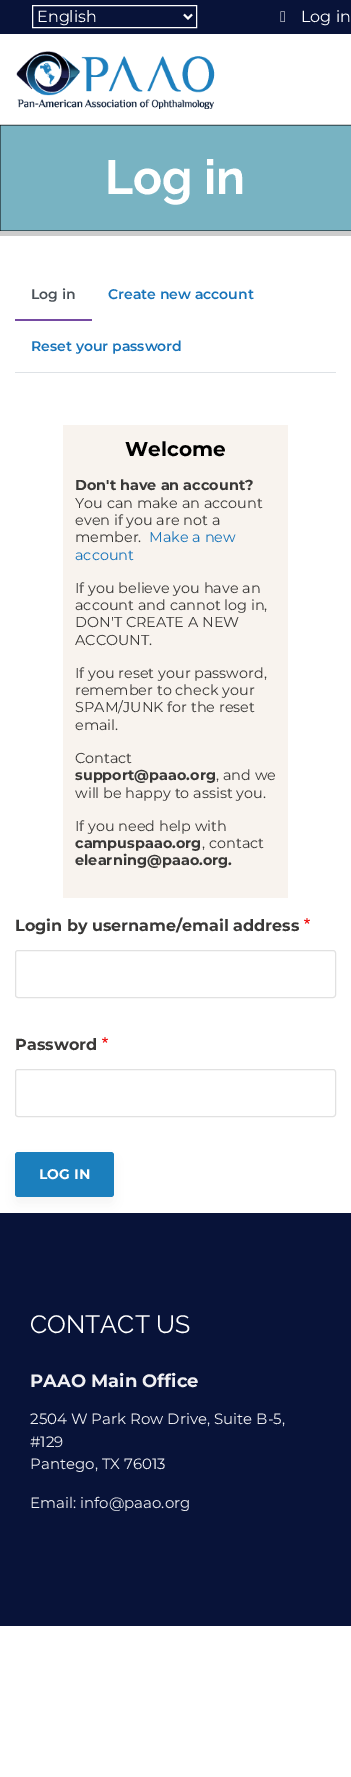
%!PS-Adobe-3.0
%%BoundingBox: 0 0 351 1777
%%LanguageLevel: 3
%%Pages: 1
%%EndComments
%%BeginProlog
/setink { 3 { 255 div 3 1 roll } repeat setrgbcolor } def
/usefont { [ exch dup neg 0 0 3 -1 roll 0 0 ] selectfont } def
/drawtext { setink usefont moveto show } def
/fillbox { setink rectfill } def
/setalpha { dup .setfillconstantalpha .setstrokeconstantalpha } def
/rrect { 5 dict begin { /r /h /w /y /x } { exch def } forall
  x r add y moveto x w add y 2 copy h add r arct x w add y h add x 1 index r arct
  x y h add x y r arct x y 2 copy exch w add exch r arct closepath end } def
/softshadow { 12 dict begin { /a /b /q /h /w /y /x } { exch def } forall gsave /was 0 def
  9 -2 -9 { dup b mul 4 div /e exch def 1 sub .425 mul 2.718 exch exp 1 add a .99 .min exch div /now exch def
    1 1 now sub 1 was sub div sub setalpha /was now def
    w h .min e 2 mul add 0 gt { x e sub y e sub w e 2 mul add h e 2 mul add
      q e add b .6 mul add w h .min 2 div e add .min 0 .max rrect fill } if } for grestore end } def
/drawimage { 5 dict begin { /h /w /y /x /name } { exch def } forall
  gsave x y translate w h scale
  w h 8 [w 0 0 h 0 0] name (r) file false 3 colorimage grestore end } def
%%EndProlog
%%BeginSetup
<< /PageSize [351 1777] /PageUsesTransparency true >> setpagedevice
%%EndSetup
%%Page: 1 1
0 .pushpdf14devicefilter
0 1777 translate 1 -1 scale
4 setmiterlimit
0 0 351 1777 255 255 255 fillbox
0 0 351 34 8 19 57 fillbox
255 255 255 setink
32.5 5.5 164 22 rectstroke
2 setlinewidth
184 14.5 moveto 188 18.5 lineto 192 14.5 lineto stroke
(English) 37 22 /Montserrat-Regular 16 255 255 255 drawtext
(assets/img1.rgb) 280 11 5 11 drawimage
(Log in) 301 22 /Montserrat-Regular 16 255 255 255 drawtext
(assets/img2.rgb) 16 51 199 58 drawimage
(assets/img3.rgb) 0 125 351 106 drawimage
0 124 351 1 204 204 204 fillbox
0 231 351 5 204 204 204 fillbox
(Log in) 105 194 /Raleway-Bold 48 255 255 255 drawtext
15 372 321 1 222 226 230 fillbox
15 319 77 2 118 75 162 fillbox
(Log in) 31 299 /Montserrat-SemiBold 14 73 80 87 drawtext
(Create new account) 108 299 /Montserrat-SemiBold 14 23 115 185 drawtext
(Reset your password) 31 351 /Montserrat-SemiBold 14 23 115 185 drawtext
63 425 225 473 248 243 238 fillbox
(Welcome) 125 456 /Montserrat-Bold 20 0 0 0 drawtext
(Don't have an account?) 75 490 /Montserrat-Bold 14.4 57 56 55 drawtext
(You can make an account) 75 508 /Montserrat-Regular 14.4 57 56 55 drawtext
(even if you are not a) 75 525 /Montserrat-Regular 14.4 57 56 55 drawtext
(member.) 75 542 /Montserrat-Regular 14.4 57 56 55 drawtext
(Make a new) 149 542 /Montserrat-Regular 14.4 23 115 185 drawtext
(account) 75 560 /Montserrat-Regular 14.4 23 115 185 drawtext
(If you believe you have an) 75 593 /Montserrat-Regular 14.4 57 56 55 drawtext
(account and cannot log in,) 75 610 /Montserrat-Regular 14.4 57 56 55 drawtext
(DON'T CREATE A NEW) 75 627 /Montserrat-Regular 14.4 57 56 55 drawtext
(ACCOUNT.) 75 645 /Montserrat-Regular 14.4 57 56 55 drawtext
(If you reset your password,) 75 678 /Montserrat-Regular 14.4 57 56 55 drawtext
(remember to check your) 75 695 /Montserrat-Regular 14.4 57 56 55 drawtext
(SPAM/JUNK for the reset) 75 712 /Montserrat-Regular 14.4 57 56 55 drawtext
(email.) 75 730 /Montserrat-Regular 14.4 57 56 55 drawtext
(Contact) 75 763 /Montserrat-Regular 14.4 57 56 55 drawtext
(support@paao.org) 75 780 /Montserrat-Bold 14.4 57 56 55 drawtext
(, and we) 216 780 /Montserrat-Regular 14.4 57 56 55 drawtext
(will be happy to assist you.) 75 798 /Montserrat-Regular 14.4 57 56 55 drawtext
(If you need help with) 75 831 /Montserrat-Regular 14.4 57 56 55 drawtext
(campuspaao.org) 75 848 /Montserrat-Bold 14.4 57 56 55 drawtext
(, contact) 202 848 /Montserrat-Regular 14.4 57 56 55 drawtext
(elearning@paao.org.) 75 865 /Montserrat-Bold 14.4 57 56 55 drawtext
(Login by username/email address) 15 931 /Montserrat-Bold 16 57 56 55 drawtext
(assets/img4.rgb) 304 918 6 6 drawimage
225 225 225 setink
1 setlinewidth
15.5 950.5 320 47 2.5 rrect stroke
(Password) 15 1050 /Montserrat-Bold 16 57 56 55 drawtext
(assets/img4.rgb) 102 1037 6 6 drawimage
225 225 225 setink
15.5 1069.5 320 47 2.5 rrect stroke
0 1213 351 413 8 19 57 fillbox
10 10 10 setink
17 1161 95 41 1 7 0.05 softshadow
27 127 189 setink
15 1152 99 45 3 rrect fill
(LOG IN) 39 1179 /Montserrat-Bold 14 255 255 255 drawtext
(CONTACT US) 30 1333 /Raleway-Regular 25 255 255 255 drawtext
(PAAO Main Office) 30 1387 /Montserrat-Bold 18 240 240 243 drawtext
(2504 W Park Row Drive, Suite B-5,) 30 1424 /Montserrat-Regular 15 240 240 243 drawtext
(#129) 30 1447 /Montserrat-Regular 15 240 240 243 drawtext
(Pantego, TX 76013) 30 1469 /Montserrat-Regular 15 240 240 243 drawtext
(Email: info@paao.org) 30 1508 /Montserrat-Regular 15 240 240 243 drawtext
.poppdf14devicefilter showpage
%%EOF
